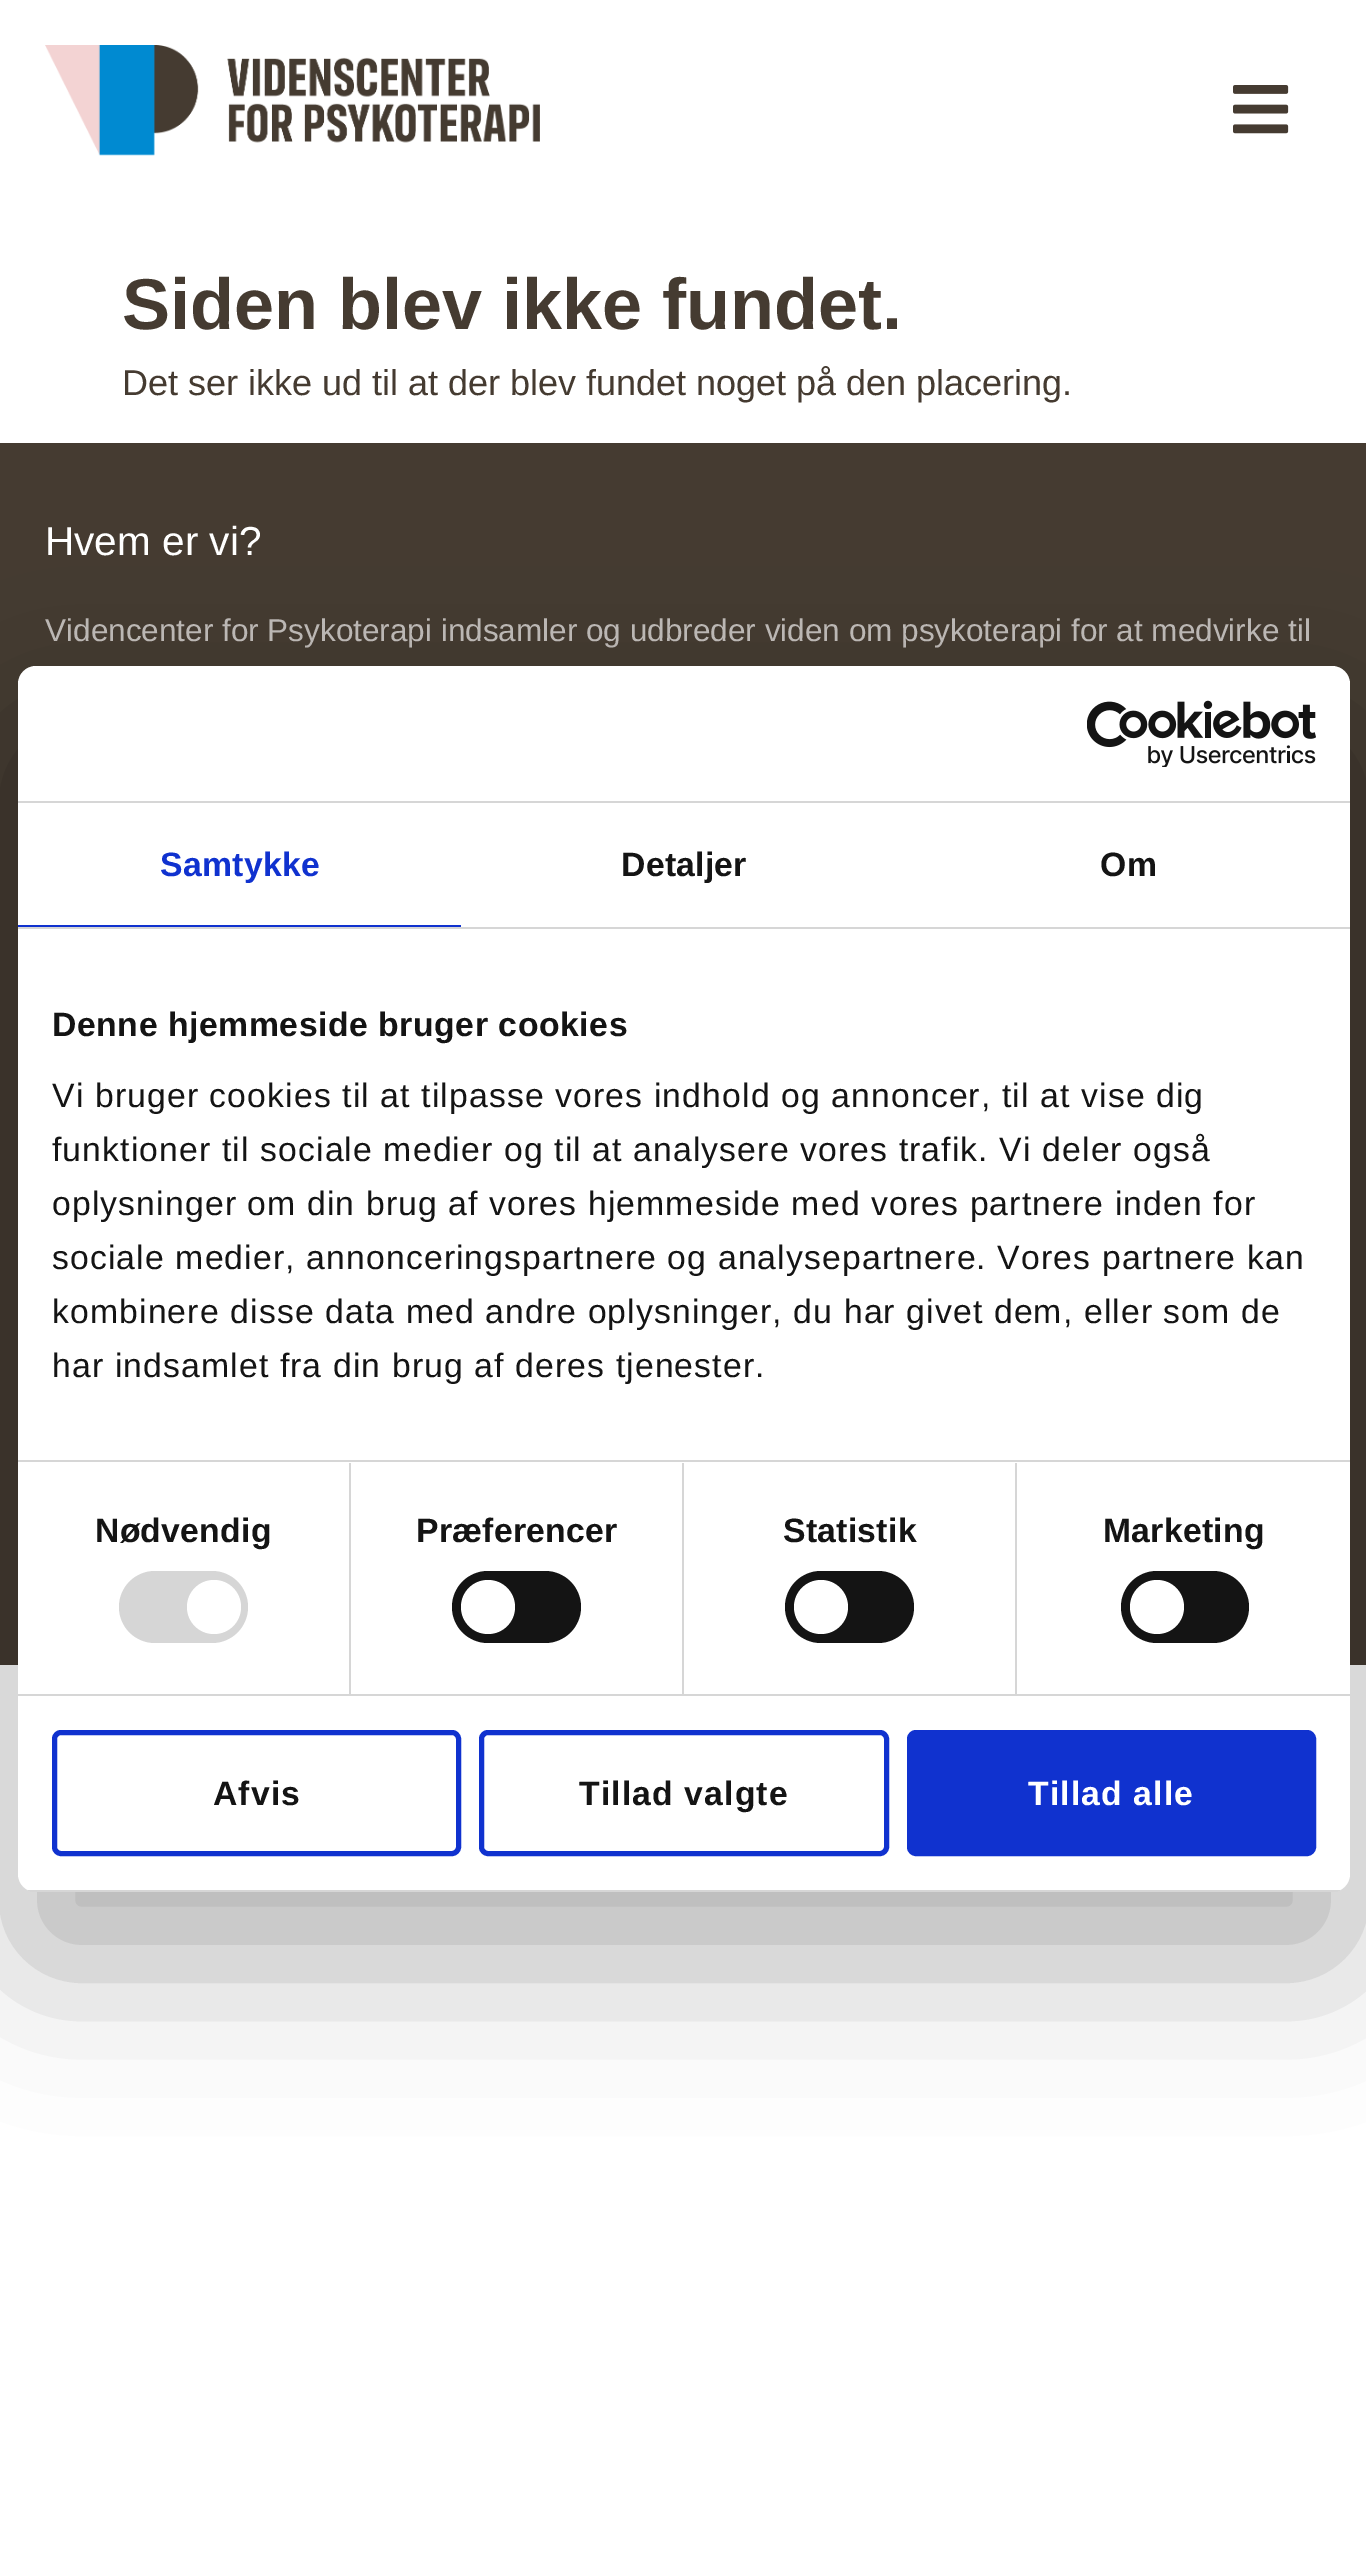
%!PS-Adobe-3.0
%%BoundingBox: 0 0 1366 2559
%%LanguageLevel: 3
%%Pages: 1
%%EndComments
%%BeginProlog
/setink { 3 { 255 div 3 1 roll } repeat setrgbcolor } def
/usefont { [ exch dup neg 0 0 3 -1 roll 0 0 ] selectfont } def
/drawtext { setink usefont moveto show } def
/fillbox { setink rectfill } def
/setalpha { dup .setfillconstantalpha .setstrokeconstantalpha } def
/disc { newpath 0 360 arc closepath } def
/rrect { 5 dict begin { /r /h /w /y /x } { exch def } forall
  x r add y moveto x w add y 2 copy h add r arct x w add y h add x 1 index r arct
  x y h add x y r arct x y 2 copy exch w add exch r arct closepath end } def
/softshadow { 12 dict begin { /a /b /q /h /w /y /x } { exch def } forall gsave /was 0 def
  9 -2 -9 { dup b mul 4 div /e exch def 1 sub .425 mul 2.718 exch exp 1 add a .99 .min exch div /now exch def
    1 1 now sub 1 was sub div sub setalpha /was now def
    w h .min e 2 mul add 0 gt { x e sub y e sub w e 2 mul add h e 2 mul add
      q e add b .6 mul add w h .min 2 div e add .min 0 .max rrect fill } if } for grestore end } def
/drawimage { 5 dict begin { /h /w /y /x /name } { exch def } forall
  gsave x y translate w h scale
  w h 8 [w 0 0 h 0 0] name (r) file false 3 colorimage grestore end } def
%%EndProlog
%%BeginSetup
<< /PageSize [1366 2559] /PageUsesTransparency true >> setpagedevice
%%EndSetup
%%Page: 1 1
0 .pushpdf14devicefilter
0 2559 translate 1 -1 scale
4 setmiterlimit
0 0 1366 2559 255 255 255 fillbox
(assets/img1.rgb) 45 45 495 111 drawimage
(assets/img2.rgb) 1233 85 56 49 drawimage
(Siden blev ikke fundet.) 122 329 /LiberationSans-Bold 72 69 59 49 drawtext
(Det ser ikke ud til at der blev fundet noget på den placering.) 122 395 /LiberationSans-Regular 36 69 59 49 drawtext
0 443 1366 1222 69 59 49 fillbox
(Hvem er vi?) 45 555 /LiberationSans-Regular 40.5 255 255 255 drawtext
(Videncenter for Psykoterapi indsamler og udbreder viden om psykoterapi for at medvirke til) 45 641 /LiberationSans-Regular 31.5 190 186 183 drawtext
0 0 0 setink
18 738 1332 1226 18 76.5 0.3 softshadow
255 255 255 setink
18 666 1332 1226 18 rrect fill
18 801 1332 2 214 214 214 fillbox
(assets/img3.rgb) 1087 700 229 67 drawimage
18 927 1332 2 214 214 214 fillbox
18 925 443 2 16 50 207 fillbox
/LiberationSans-Bold 33.75 usefont
160 876 moveto 0.25 0 (Samtykke) ashow
20 20 20 setink
621 876 moveto 0.25 0 (Detaljer) ashow
1100 876 moveto 0.25 0 (Om) ashow
18 1460 1332 2 214 214 214 fillbox
20 20 20 setink
52 1036 moveto 0.55 0 (Denne hjemmeside bruger cookies) ashow
/LiberationSans-Regular 33.75 usefont
52 1107 moveto 1.12 0 (Vi bruger cookies til at tilpasse vores indhold og annoncer, til at vise dig) ashow
52 1161 moveto 1.12 0 (funktioner til sociale medier og til at analysere vores trafik. Vi deler også) ashow
52 1215 moveto 1.12 0 (oplysninger om din brug af vores hjemmeside med vores partnere inden for) ashow
52 1269 moveto 1.12 0 (sociale medier, annonceringspartnere og analysepartnere. Vores partnere kan) ashow
52 1323 moveto 1.12 0 (kombinere disse data med andre oplysninger, du har givet dem, eller som de) ashow
52 1377 moveto 1.12 0 (har indsamlet fra din brug af deres tjenester.) ashow
18 1694 1332 2 214 214 214 fillbox
349 1463 2 231 214 214 214 fillbox
/LiberationSans-Bold 33.75 usefont
20 20 20 setink
95 1542 moveto 0.25 0 (Nødvendig) ashow
214 214 214 setink
119 1571 129 72 36 rrect fill
255 255 255 setink
214 1607 27 disc fill
682 1463 2 231 214 214 214 fillbox
20 20 20 setink
416 1542 moveto 0.25 0 (Præferencer) ashow
452 1571 129 72 36 rrect fill
255 255 255 setink
488 1607 27 disc fill
1015 1463 2 231 214 214 214 fillbox
20 20 20 setink
783 1542 moveto 0.25 0 (Statistik) ashow
785 1571 129 72 36 rrect fill
255 255 255 setink
821 1607 27 disc fill
20 20 20 setink
1103 1542 moveto 0.25 0 (Marketing) ashow
1121 1571 128 72 36 rrect fill
255 255 255 setink
1157 1607 27 disc fill
gsave
18 666 1332 1226 18 rrect clip newpath
28 1890 1312 2 214 214 214 fillbox
grestore
16 50 207 setink
5 setlinewidth
54.5 1732.5 404 121 6.5 rrect stroke
20 20 20 setink
213 1805 moveto 1.12 0 (Afvis) ashow
16 50 207 setink
481.5 1732.5 405 121 6.5 rrect stroke
20 20 20 setink
579 1805 moveto 1.12 0 (Tillad valgte) ashow
16 50 207 setink
909.5 1732.5 404 121 6.5 rrect gsave fill grestore
stroke
255 255 255 setink
1028 1805 moveto 1.12 0 (Tillad alle) ashow
.poppdf14devicefilter showpage
%%EOF
